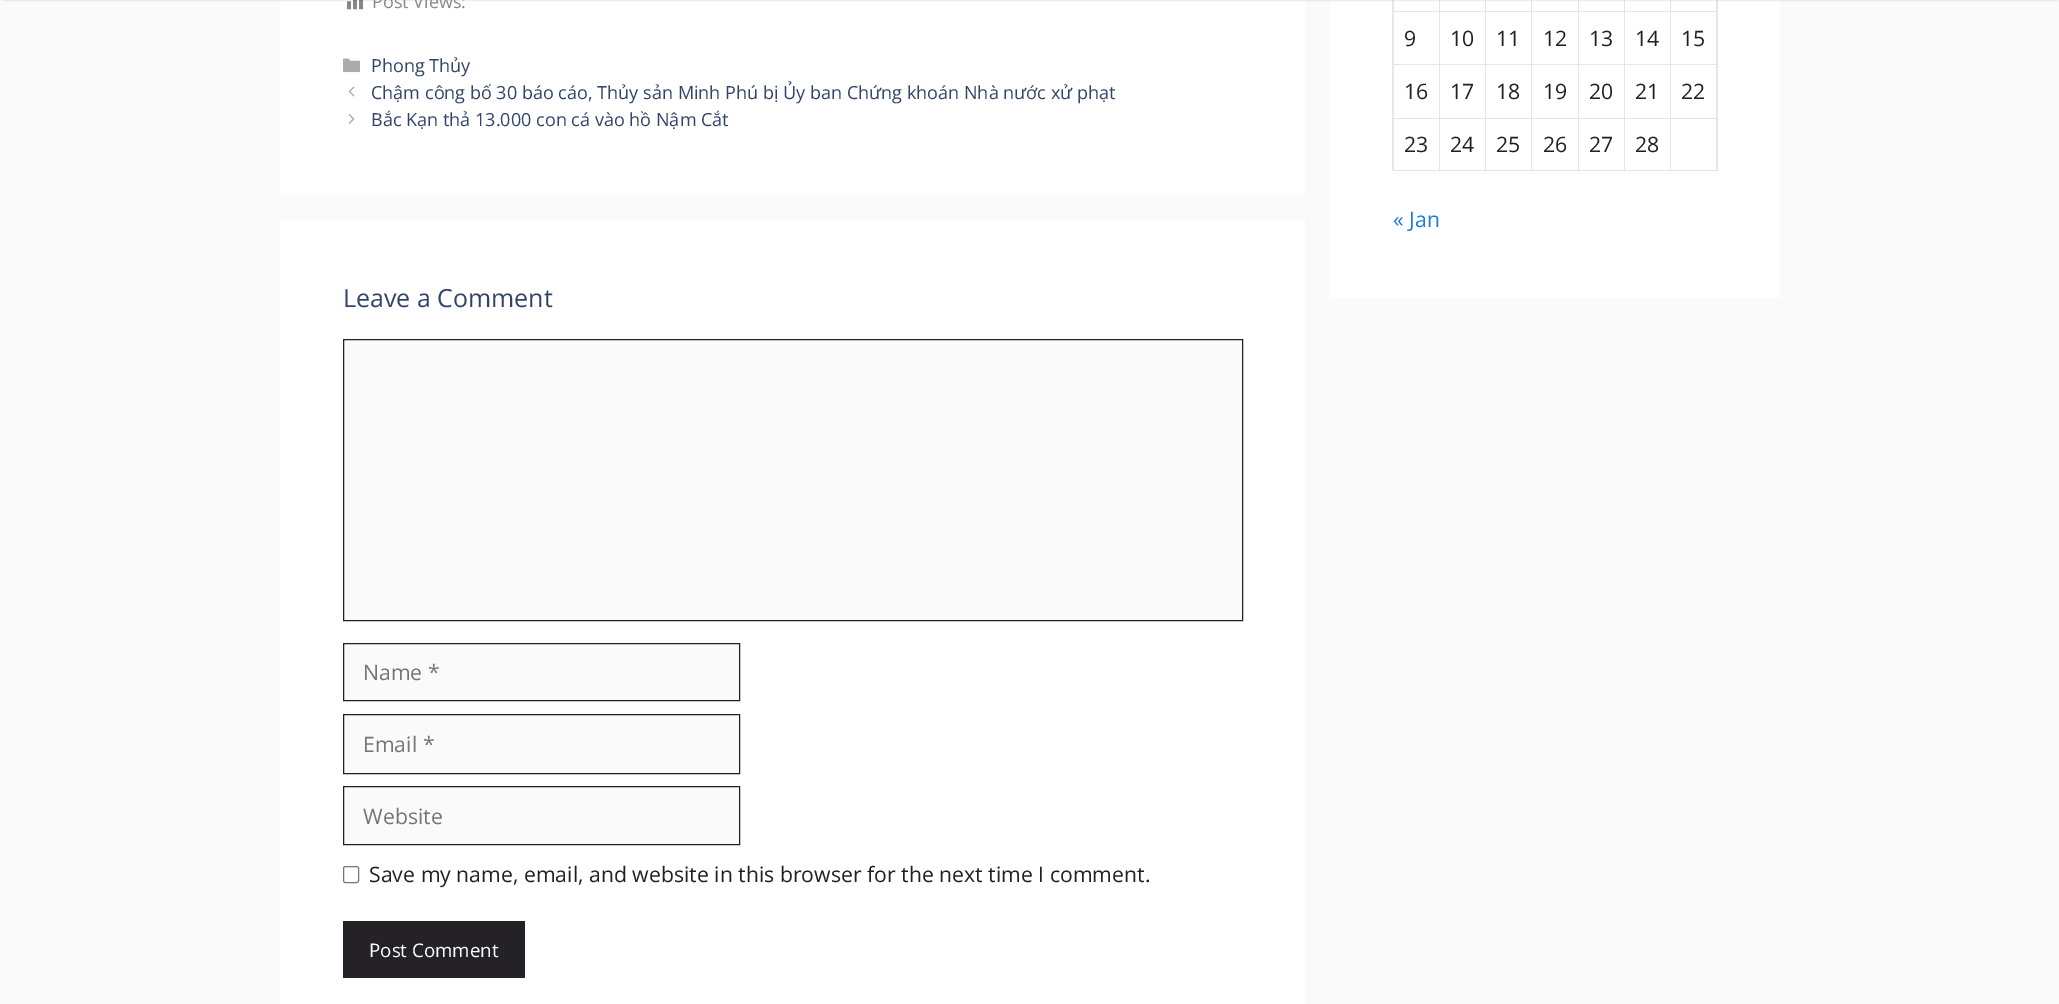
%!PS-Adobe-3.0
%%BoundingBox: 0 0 2059 1004
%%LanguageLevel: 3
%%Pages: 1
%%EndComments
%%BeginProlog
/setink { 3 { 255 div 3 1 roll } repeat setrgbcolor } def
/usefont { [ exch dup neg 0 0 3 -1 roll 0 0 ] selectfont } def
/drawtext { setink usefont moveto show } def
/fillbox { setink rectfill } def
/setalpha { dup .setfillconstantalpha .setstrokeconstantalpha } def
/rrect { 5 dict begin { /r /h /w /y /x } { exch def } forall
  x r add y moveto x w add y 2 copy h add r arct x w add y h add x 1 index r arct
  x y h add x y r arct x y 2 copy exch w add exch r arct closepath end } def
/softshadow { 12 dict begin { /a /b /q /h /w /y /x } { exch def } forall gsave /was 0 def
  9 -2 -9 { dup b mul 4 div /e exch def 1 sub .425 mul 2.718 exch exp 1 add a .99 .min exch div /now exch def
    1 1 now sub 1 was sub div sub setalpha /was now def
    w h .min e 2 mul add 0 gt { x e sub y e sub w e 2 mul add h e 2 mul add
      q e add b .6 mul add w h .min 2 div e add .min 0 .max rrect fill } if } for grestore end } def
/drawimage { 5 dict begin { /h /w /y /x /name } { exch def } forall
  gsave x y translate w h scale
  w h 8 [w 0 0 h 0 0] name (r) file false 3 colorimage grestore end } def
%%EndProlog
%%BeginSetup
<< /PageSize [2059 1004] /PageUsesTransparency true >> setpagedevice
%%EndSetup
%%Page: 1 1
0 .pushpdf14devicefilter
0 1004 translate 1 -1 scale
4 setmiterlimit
0 0 2059 1004 250 250 250 fillbox
280 0 1025 195 255 255 255 fillbox
(assets/img1.rgb) 347 0 16 10 drawimage
1330 0 450 298 255 255 255 fillbox
230 230 230 setink
1392 171 moveto 1392 -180 lineto 1394 -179 lineto 1394 171 lineto closepath fill
1440 -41 moveto 1440 12 lineto 1439 11 lineto 1439 -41 lineto closepath fill
1486 -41 moveto 1486 12 lineto 1485 11 lineto 1485 -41 lineto closepath fill
1532 -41 moveto 1532 12 lineto 1531 11 lineto 1531 -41 lineto closepath fill
1579 -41 moveto 1579 12 lineto 1578 11 lineto 1578 -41 lineto closepath fill
1625 -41 moveto 1625 12 lineto 1624 11 lineto 1624 -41 lineto closepath fill
1671 -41 moveto 1671 12 lineto 1670 11 lineto 1670 -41 lineto closepath fill
1718 -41 moveto 1718 12 lineto 1716 11 lineto 1716 -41 lineto closepath fill
0 0 0 setink
3 -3 2055 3 0 1 0.2 softshadow
(Post Views:) 372 8 /OpenSans-Regular 18.05 135 135 135 drawtext
(assets/img2.rgb) 343 58 17 15 drawimage
(Phong Thủy) 371 72 /OpenSans-Regular 18.05 47 68 104 drawtext
(assets/img3.rgb) 348 86 7 11 drawimage
(Chậm công bố 30 báo cáo, Thủy sản Minh Phú bị Ủy ban Chứng khoán Nhà nước xử phạt) 371 99 /OpenSans-Regular 18.05 47 68 104 drawtext
(assets/img4.rgb) 348 114 7 10 drawimage
(Bắc Kạn thả 13.000 con cá vào hồ Nậm Cắt) 371 126 /OpenSans-Regular 18.05 47 68 104 drawtext
280 220 1025 784 255 255 255 fillbox
(Leave a Comment) 343 307 /OpenSans-Regular 25 47 68 104 drawtext
250 250 250 setink
343.5 339.5 moveto 1242.5 339.5 lineto 1242.5 620.5 lineto 343.5 620.5 lineto closepath gsave fill grestore
33 33 33 setink
stroke
250 250 250 setink
343.5 643.5 moveto 739.5 643.5 lineto 739.5 700.5 lineto 343.5 700.5 lineto closepath gsave fill grestore
33 33 33 setink
stroke
(Name *) 363 680 /OpenSans-Regular 21.25 117 117 117 drawtext
250 250 250 setink
343.5 714.5 moveto 739.5 714.5 lineto 739.5 773.5 lineto 343.5 773.5 lineto closepath gsave fill grestore
33 33 33 setink
stroke
(Email *) 363 752 /OpenSans-Regular 21.25 117 117 117 drawtext
250 250 250 setink
343.5 786.5 moveto 739.5 786.5 lineto 739.5 844.5 lineto 343.5 844.5 lineto closepath gsave fill grestore
33 33 33 setink
stroke
(Website) 363 824 /OpenSans-Regular 21.25 117 117 117 drawtext
118 118 118 setink
343.5 866.5 15 16 2 rrect stroke
(Save my name, email, and website in this browser for the next time I comment.) 369 882 /OpenSans-Regular 21.25 33 33 33 drawtext
343 921 182 57 36 34 38 fillbox
(Post Comment) 369 957 /OpenSans-Regular 18.75 255 255 255 drawtext
0.1 setalpha
0 0 0 setink
1440 12 moveto 1394 12 lineto 1394 11 lineto 1439 11 lineto closepath fill
1486 12 moveto 1440 12 lineto 1440 11 lineto 1485 11 lineto closepath fill
1532 12 moveto 1486 12 lineto 1486 11 lineto 1531 11 lineto closepath fill
1579 12 moveto 1532 12 lineto 1532 11 lineto 1578 11 lineto closepath fill
1625 12 moveto 1579 12 lineto 1579 11 lineto 1624 11 lineto closepath fill
1671 12 moveto 1625 12 lineto 1625 11 lineto 1670 11 lineto closepath fill
1718 12 moveto 1671 12 lineto 1671 11 lineto 1716 11 lineto closepath fill
1 setalpha
230 230 230 setink
1440 12 moveto 1440 65 lineto 1439 64 lineto 1439 12 lineto closepath fill
0.1 setalpha
0 0 0 setink
1440 65 moveto 1394 65 lineto 1394 64 lineto 1439 64 lineto closepath fill
1 setalpha
(9) 1404 46 /OpenSans-Regular 21.25 33 33 33 drawtext
230 230 230 setink
1486 12 moveto 1486 65 lineto 1485 64 lineto 1485 12 lineto closepath fill
0.1 setalpha
0 0 0 setink
1486 65 moveto 1440 65 lineto 1440 64 lineto 1485 64 lineto closepath fill
1 setalpha
(10) 1450 46 /OpenSans-Regular 21.25 33 33 33 drawtext
230 230 230 setink
1532 12 moveto 1532 65 lineto 1531 64 lineto 1531 12 lineto closepath fill
0.1 setalpha
0 0 0 setink
1532 65 moveto 1486 65 lineto 1486 64 lineto 1531 64 lineto closepath fill
1 setalpha
(11) 1496 46 /OpenSans-Regular 21.25 33 33 33 drawtext
230 230 230 setink
1579 12 moveto 1579 65 lineto 1578 64 lineto 1578 12 lineto closepath fill
0.1 setalpha
0 0 0 setink
1579 65 moveto 1532 65 lineto 1532 64 lineto 1578 64 lineto closepath fill
1 setalpha
(12) 1543 46 /OpenSans-Regular 21.25 33 33 33 drawtext
230 230 230 setink
1625 12 moveto 1625 65 lineto 1624 64 lineto 1624 12 lineto closepath fill
0.1 setalpha
0 0 0 setink
1625 65 moveto 1579 65 lineto 1579 64 lineto 1624 64 lineto closepath fill
1 setalpha
(13) 1589 46 /OpenSans-Regular 21.25 33 33 33 drawtext
230 230 230 setink
1671 12 moveto 1671 65 lineto 1670 64 lineto 1670 12 lineto closepath fill
0.1 setalpha
0 0 0 setink
1671 65 moveto 1625 65 lineto 1625 64 lineto 1670 64 lineto closepath fill
1 setalpha
(14) 1635 46 /OpenSans-Regular 21.25 33 33 33 drawtext
230 230 230 setink
1718 12 moveto 1718 65 lineto 1716 64 lineto 1716 12 lineto closepath fill
0.1 setalpha
0 0 0 setink
1718 65 moveto 1671 65 lineto 1671 64 lineto 1716 64 lineto closepath fill
1 setalpha
(15) 1681 46 /OpenSans-Regular 21.25 33 33 33 drawtext
230 230 230 setink
1440 65 moveto 1440 119 lineto 1439 118 lineto 1439 65 lineto closepath fill
0.1 setalpha
0 0 0 setink
1440 119 moveto 1394 119 lineto 1394 118 lineto 1439 118 lineto closepath fill
1 setalpha
(16) 1404 99 /OpenSans-Regular 21.25 33 33 33 drawtext
230 230 230 setink
1486 65 moveto 1486 119 lineto 1485 118 lineto 1485 65 lineto closepath fill
0.1 setalpha
0 0 0 setink
1486 119 moveto 1440 119 lineto 1440 118 lineto 1485 118 lineto closepath fill
1 setalpha
(17) 1450 99 /OpenSans-Regular 21.25 33 33 33 drawtext
230 230 230 setink
1532 65 moveto 1532 119 lineto 1531 118 lineto 1531 65 lineto closepath fill
0.1 setalpha
0 0 0 setink
1532 119 moveto 1486 119 lineto 1486 118 lineto 1531 118 lineto closepath fill
1 setalpha
(18) 1496 99 /OpenSans-Regular 21.25 33 33 33 drawtext
230 230 230 setink
1579 65 moveto 1579 119 lineto 1578 118 lineto 1578 65 lineto closepath fill
0.1 setalpha
0 0 0 setink
1579 119 moveto 1532 119 lineto 1532 118 lineto 1578 118 lineto closepath fill
1 setalpha
(19) 1543 99 /OpenSans-Regular 21.25 33 33 33 drawtext
230 230 230 setink
1625 65 moveto 1625 119 lineto 1624 118 lineto 1624 65 lineto closepath fill
0.1 setalpha
0 0 0 setink
1625 119 moveto 1579 119 lineto 1579 118 lineto 1624 118 lineto closepath fill
1 setalpha
(20) 1589 99 /OpenSans-Regular 21.25 33 33 33 drawtext
230 230 230 setink
1671 65 moveto 1671 119 lineto 1670 118 lineto 1670 65 lineto closepath fill
0.1 setalpha
0 0 0 setink
1671 119 moveto 1625 119 lineto 1625 118 lineto 1670 118 lineto closepath fill
1 setalpha
(21) 1635 99 /OpenSans-Regular 21.25 33 33 33 drawtext
230 230 230 setink
1718 65 moveto 1718 119 lineto 1716 118 lineto 1716 65 lineto closepath fill
0.1 setalpha
0 0 0 setink
1718 119 moveto 1671 119 lineto 1671 118 lineto 1716 118 lineto closepath fill
1 setalpha
(22) 1681 99 /OpenSans-Regular 21.25 33 33 33 drawtext
230 230 230 setink
1440 119 moveto 1440 171 lineto 1439 170 lineto 1439 119 lineto closepath fill
0.1 setalpha
0 0 0 setink
1440 171 moveto 1394 171 lineto 1394 170 lineto 1439 170 lineto closepath fill
1 setalpha
(23) 1404 152 /OpenSans-Regular 21.25 33 33 33 drawtext
230 230 230 setink
1486 119 moveto 1486 171 lineto 1485 170 lineto 1485 119 lineto closepath fill
0.1 setalpha
0 0 0 setink
1486 171 moveto 1440 171 lineto 1440 170 lineto 1485 170 lineto closepath fill
1 setalpha
(24) 1450 152 /OpenSans-Regular 21.25 33 33 33 drawtext
230 230 230 setink
1532 119 moveto 1532 171 lineto 1531 170 lineto 1531 119 lineto closepath fill
0.1 setalpha
0 0 0 setink
1532 171 moveto 1486 171 lineto 1486 170 lineto 1531 170 lineto closepath fill
1 setalpha
(25) 1496 152 /OpenSans-Regular 21.25 33 33 33 drawtext
230 230 230 setink
1579 119 moveto 1579 171 lineto 1578 170 lineto 1578 119 lineto closepath fill
0.1 setalpha
0 0 0 setink
1579 171 moveto 1532 171 lineto 1532 170 lineto 1578 170 lineto closepath fill
1 setalpha
(26) 1543 152 /OpenSans-Regular 21.25 33 33 33 drawtext
230 230 230 setink
1625 119 moveto 1625 171 lineto 1624 170 lineto 1624 119 lineto closepath fill
0.1 setalpha
0 0 0 setink
1625 171 moveto 1579 171 lineto 1579 170 lineto 1624 170 lineto closepath fill
1 setalpha
(27) 1589 152 /OpenSans-Regular 21.25 33 33 33 drawtext
230 230 230 setink
1671 119 moveto 1671 171 lineto 1670 170 lineto 1670 119 lineto closepath fill
0.1 setalpha
0 0 0 setink
1671 171 moveto 1625 171 lineto 1625 170 lineto 1670 170 lineto closepath fill
1 setalpha
(28) 1635 152 /OpenSans-Regular 21.25 33 33 33 drawtext
230 230 230 setink
1718 119 moveto 1718 171 lineto 1716 170 lineto 1716 119 lineto closepath fill
0.1 setalpha
0 0 0 setink
1718 171 moveto 1671 171 lineto 1671 170 lineto 1716 170 lineto closepath fill
1 setalpha
(« Jan) 1393 227 /OpenSans-Regular 21.25 27 120 226 drawtext
.poppdf14devicefilter showpage
%%EOF
